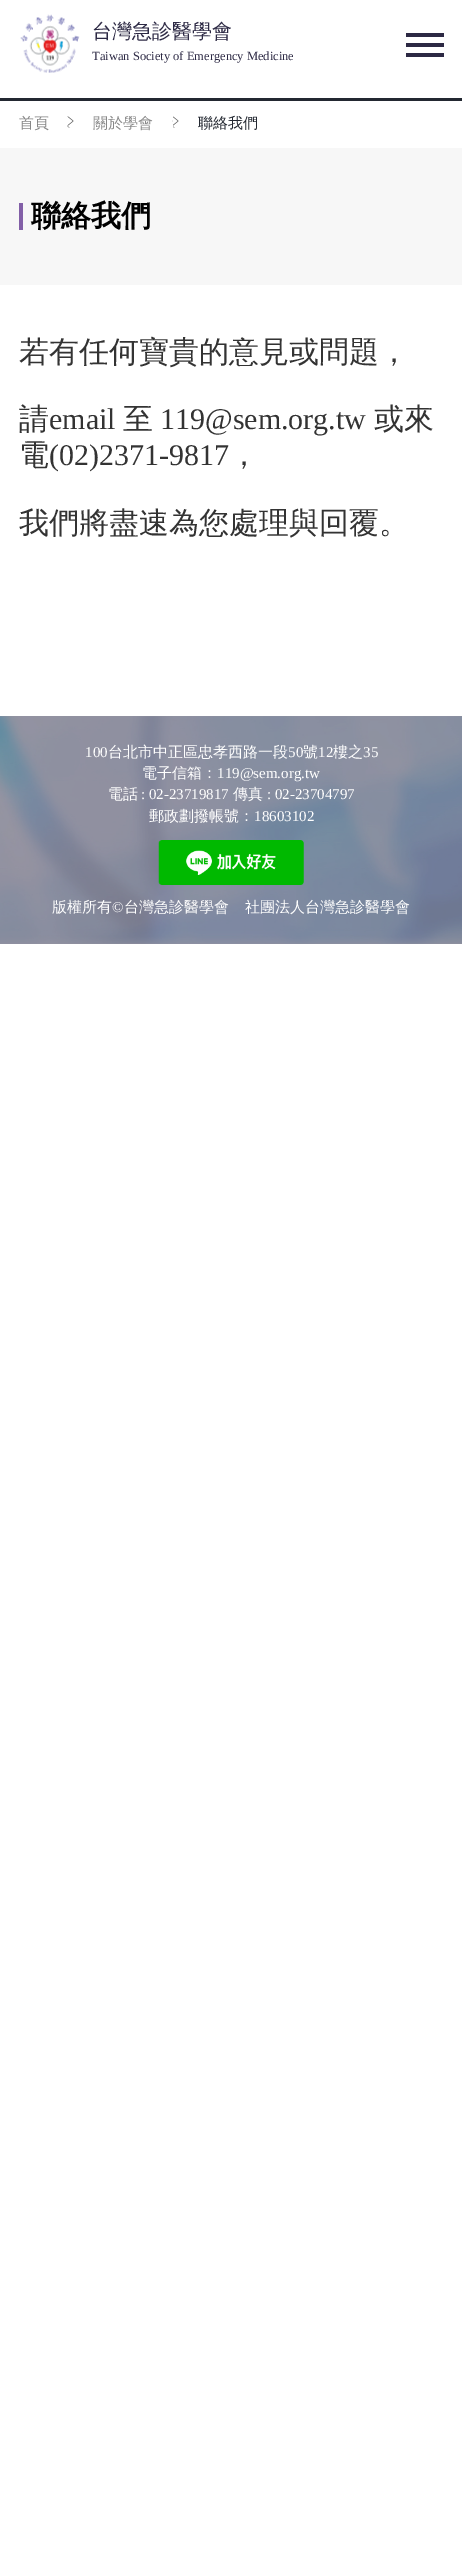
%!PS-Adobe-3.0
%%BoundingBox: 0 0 462 2567
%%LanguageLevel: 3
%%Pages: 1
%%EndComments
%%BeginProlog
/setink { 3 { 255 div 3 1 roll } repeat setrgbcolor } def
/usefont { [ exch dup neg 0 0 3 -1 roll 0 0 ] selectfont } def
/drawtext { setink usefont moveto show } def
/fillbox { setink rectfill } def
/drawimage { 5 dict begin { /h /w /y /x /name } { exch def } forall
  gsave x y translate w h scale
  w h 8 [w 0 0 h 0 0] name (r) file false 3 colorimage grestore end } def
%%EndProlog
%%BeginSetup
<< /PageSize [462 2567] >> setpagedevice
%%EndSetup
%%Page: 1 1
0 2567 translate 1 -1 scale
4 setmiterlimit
0 0 462 2567 255 255 255 fillbox
0 98 462 3 35 40 49 fillbox
(assets/img1.rgb) 20 14 60 59 drawimage
(台灣急診醫學會) 92 38 /WenQuanYiZenHei-Medium 20 44 41 68 drawtext
(Taiwan Society of Emergency Medicine) 92 60 /LiberationSerif-Regular 12.5 44 41 68 drawtext
406 33 38 4 44 41 68 fillbox
406 43 38 4 44 41 68 fillbox
406 53 38 4 44 41 68 fillbox
(首頁) 19 128 /WenQuanYiZenHei-Medium 15 136 136 136 drawtext
(assets/img2.rgb) 67 116 7 12 drawimage
(關於學會) 93 128 /WenQuanYiZenHei-Medium 15 136 136 136 drawtext
(assets/img3.rgb) 172 116 7 12 drawimage
(聯絡我們) 198 128 /WenQuanYiZenHei-Medium 15 35 40 49 drawtext
0 148 462 137 247 247 247 fillbox
19 203 4 27 130 95 167 fillbox
(聯絡我們) 31 226 /WenQuanYiZenHei-Bold 30 0 0 0 drawtext
(若有任何寶貴的意見或問題，) 19 362 /WenQuanYiZenHei-Medium 30 51 51 51 drawtext
(請) 19 429 /WenQuanYiZenHei-Medium 30 51 51 51 drawtext
(email) 49 429 /LiberationSerif-Regular 30 51 51 51 drawtext
(至) 123 429 /WenQuanYiZenHei-Medium 30 51 51 51 drawtext
(119@sem.org.tw) 160 429 /LiberationSerif-Regular 30 51 51 51 drawtext
(或來) 374 429 /WenQuanYiZenHei-Medium 30 51 51 51 drawtext
(電) 19 465 /WenQuanYiZenHei-Medium 30 51 51 51 drawtext
(\(02\)2371-9817) 49 465 /LiberationSerif-Regular 30 51 51 51 drawtext
(，) 229 465 /WenQuanYiZenHei-Medium 30 51 51 51 drawtext
(我們將盡速為您處理與回覆。) 19 533 /WenQuanYiZenHei-Medium 30 51 51 51 drawtext
(assets/img4.rgb) 0 716 462 228 drawimage
(100) 85 757 /LiberationSerif-Regular 15 255 255 255 drawtext
(台北市中正區忠孝西路一段) 108 757 /WenQuanYiZenHei-Medium 15 255 255 255 drawtext
(50) 288 757 /LiberationSerif-Regular 15 255 255 255 drawtext
(號) 303 757 /WenQuanYiZenHei-Medium 15 255 255 255 drawtext
(12) 318 757 /LiberationSerif-Regular 15 255 255 255 drawtext
(樓之) 333 757 /WenQuanYiZenHei-Medium 15 255 255 255 drawtext
(35) 363 757 /LiberationSerif-Regular 15 255 255 255 drawtext
(電子信箱：) 142 778 /WenQuanYiZenHei-Medium 15 255 255 255 drawtext
(119@sem.org.tw) 217 778 /LiberationSerif-Regular 15 255 255 255 drawtext
(電話) 108 799 /WenQuanYiZenHei-Medium 15 255 255 255 drawtext
(: 02-23719817) 141 799 /LiberationSerif-Regular 15 255 255 255 drawtext
(傳真) 233 799 /WenQuanYiZenHei-Medium 15 255 255 255 drawtext
(: 02-23704797) 267 799 /LiberationSerif-Regular 15 255 255 255 drawtext
(郵政劃撥帳號：) 149 821 /WenQuanYiZenHei-Medium 15 255 255 255 drawtext
(18603102) 254 821 /LiberationSerif-Regular 15 255 255 255 drawtext
(assets/img5.rgb) 158 840 146 45 drawimage
(版權所有) 52 912 /WenQuanYiZenHei-Medium 15 255 255 255 drawtext
(©) 112 912 /LiberationSerif-Regular 15 255 255 255 drawtext
(台灣急診醫學會) 124 912 /WenQuanYiZenHei-Medium 15 255 255 255 drawtext
(社團法人台灣急診醫學會) 245 912 /WenQuanYiZenHei-Medium 15 255 255 255 drawtext
showpage
%%EOF
